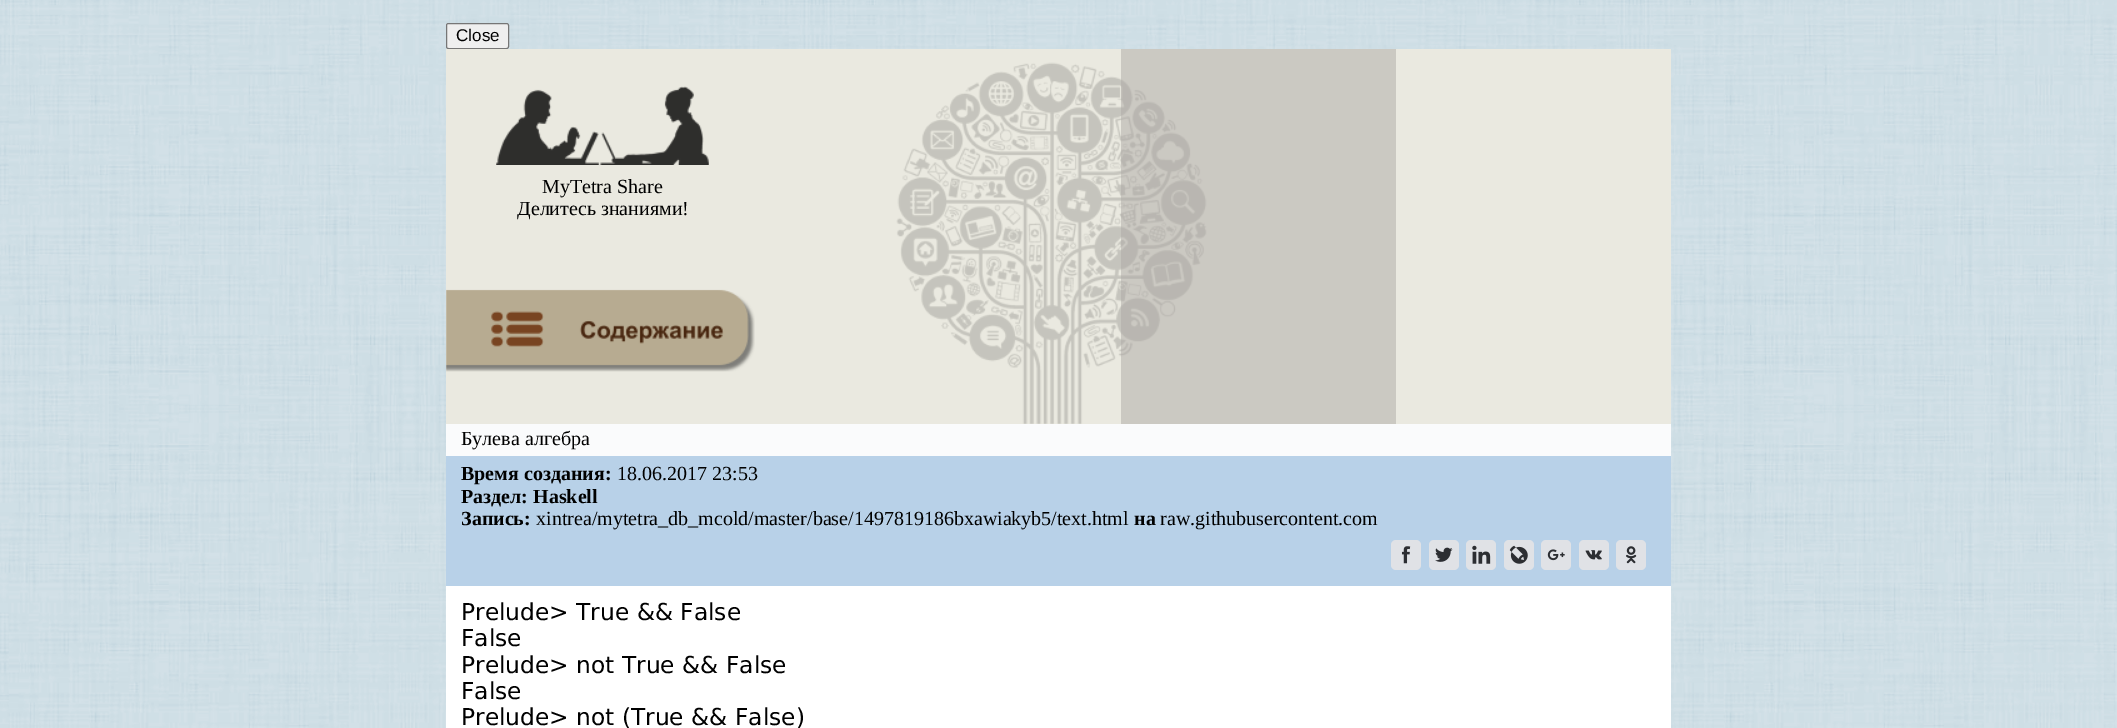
%!PS-Adobe-3.0
%%BoundingBox: 0 0 2117 728
%%LanguageLevel: 3
%%Pages: 1
%%EndComments
%%BeginProlog
/setink { 3 { 255 div 3 1 roll } repeat setrgbcolor } def
/usefont { [ exch dup neg 0 0 3 -1 roll 0 0 ] selectfont } def
/drawtext { setink usefont moveto show } def
/fillbox { setink rectfill } def
/setalpha { dup .setfillconstantalpha .setstrokeconstantalpha } def
/rrect { 5 dict begin { /r /h /w /y /x } { exch def } forall
  x r add y moveto x w add y 2 copy h add r arct x w add y h add x 1 index r arct
  x y h add x y r arct x y 2 copy exch w add exch r arct closepath end } def
/drawimage { 5 dict begin { /h /w /y /x /name } { exch def } forall
  gsave x y translate w h scale
  w h 8 [w 0 0 h 0 0] name (r) file false 3 colorimage grestore end } def
%%EndProlog
%%BeginSetup
<< /PageSize [2117 728] /PageUsesTransparency true >> setpagedevice
%%EndSetup
%%Page: 1 1
0 .pushpdf14devicefilter
0 728 translate 1 -1 scale
4 setmiterlimit
0 0 2117 728 255 255 255 fillbox
(assets/img1.rgb) 0 0 2117 728 drawimage
239 239 239 setink
446.5 23.5 62 25 2 rrect gsave fill grestore
118 118 118 setink
stroke
(Close) 456 41 /LiberationSans-Regular 17 0 0 0 drawtext
446 49 1225 375 234 233 224 fillbox
(assets/img2.rgb) 896 62 311 362 drawimage
(assets/img3.rgb) 496 86 213 79 drawimage
(MyTetra Share) 542 193 /LiberationSerif-Regular 20 0 0 0 drawtext
(Делитесь знаниями!) 517 215 /LiberationSerif-Regular 20 0 0 0 drawtext
0.5 setalpha
1121 49 275 375 173 169 165 fillbox
1 setalpha
(assets/img4.rgb) 446 289 309 83 drawimage
446 424 1225 32 250 251 252 fillbox
(Булева алгебра) 461 445 /LiberationSerif-Regular 20 0 0 0 drawtext
446 456 1225 130 184 209 232 fillbox
(Время создания:) 461 480 /LiberationSerif-Bold 20 0 0 0 drawtext
(18.06.2017 23:53) 617 480 /LiberationSerif-Regular 20 0 0 0 drawtext
(Раздел: Haskell) 461 503 /LiberationSerif-Bold 20 0 0 0 drawtext
(Запись:) 461 525 /LiberationSerif-Bold 20 0 0 0 drawtext
(xintrea/mytetra_db_mcold/master/base/1497819186bxawiakyb5/text.html) 536 525 /LiberationSerif-Regular 20 0 0 0 drawtext
(на) 1134 525 /LiberationSerif-Bold 20 0 0 0 drawtext
(raw.githubusercontent.com) 1160 525 /LiberationSerif-Regular 20 0 0 0 drawtext
224 226 230 setink
1391 540 30 30 5 rrect fill
(assets/img5.rgb) 1401 546 10 18 drawimage
1429 540 30 30 5 rrect fill
(assets/img6.rgb) 1435 547 18 15 drawimage
1466 540 30 30 5 rrect fill
(assets/img7.rgb) 1472 545 19 19 drawimage
1504 540 30 30 5 rrect fill
(assets/img8.rgb) 1509 545 19 19 drawimage
1541 540 30 30 5 rrect fill
(assets/img9.rgb) 1547 549 18 12 drawimage
1579 540 30 30 5 rrect fill
(assets/img10.rgb) 1585 550 17 10 drawimage
1616 540 30 30 5 rrect fill
(assets/img11.rgb) 1626 546 11 18 drawimage
446 586 1225 142 255 255 255 fillbox
(Prelude> True && False) 461 620 /DejaVuSans-Regular 23.3 0 0 0 drawtext
(False) 461 646 /DejaVuSans-Regular 23.3 0 0 0 drawtext
(Prelude> not True && False) 461 673 /DejaVuSans-Regular 23.3 0 0 0 drawtext
(False) 461 699 /DejaVuSans-Regular 23.3 0 0 0 drawtext
(Prelude> not \(True && False\)) 461 725 /DejaVuSans-Regular 23.3 0 0 0 drawtext
.poppdf14devicefilter showpage
%%EOF
